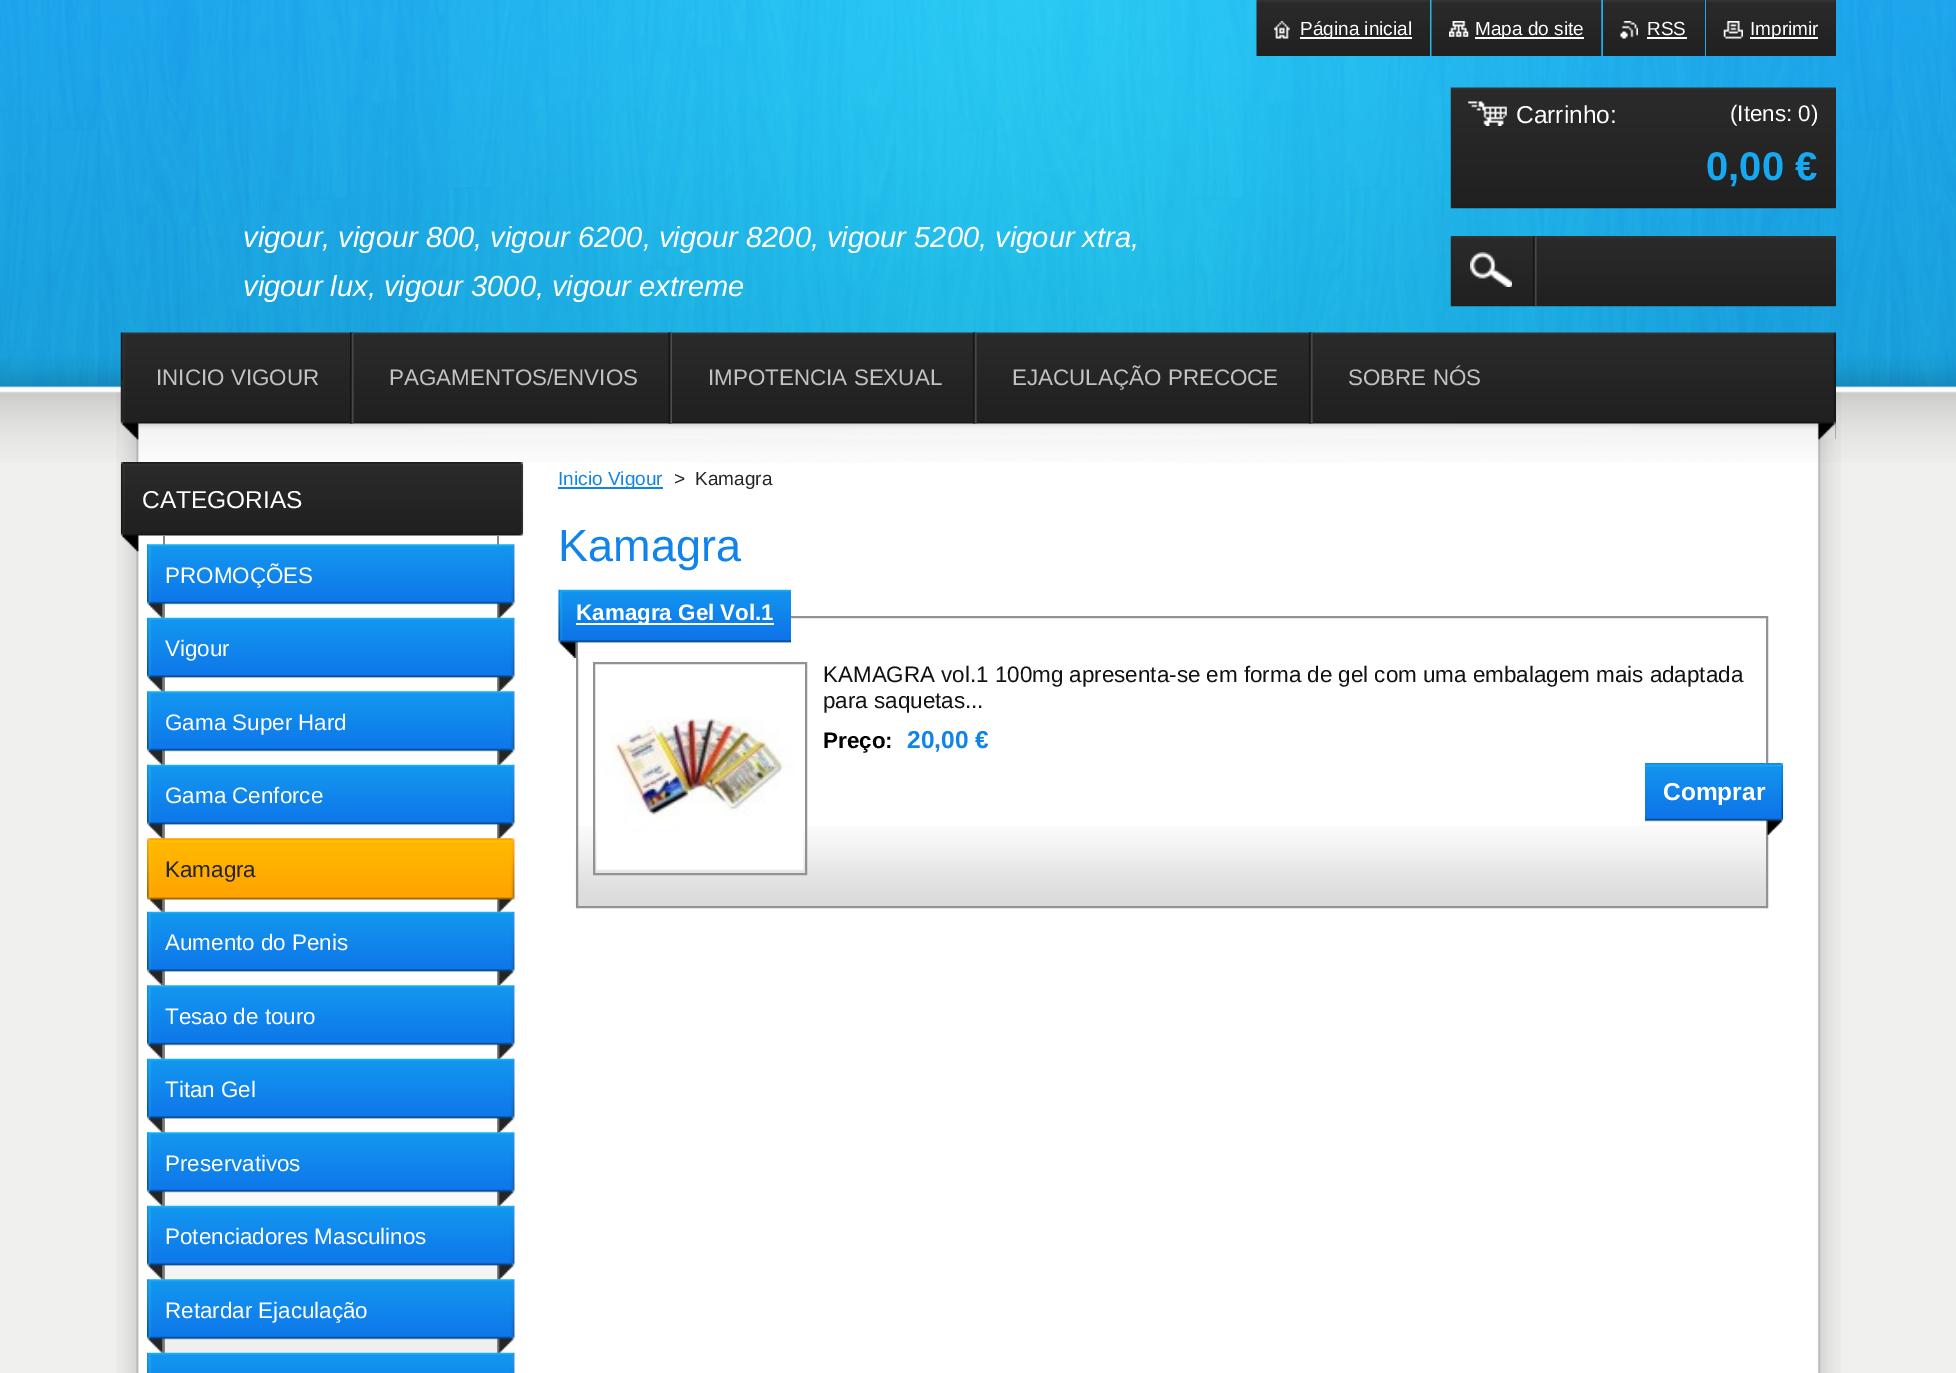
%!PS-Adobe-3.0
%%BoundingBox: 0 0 1956 1373
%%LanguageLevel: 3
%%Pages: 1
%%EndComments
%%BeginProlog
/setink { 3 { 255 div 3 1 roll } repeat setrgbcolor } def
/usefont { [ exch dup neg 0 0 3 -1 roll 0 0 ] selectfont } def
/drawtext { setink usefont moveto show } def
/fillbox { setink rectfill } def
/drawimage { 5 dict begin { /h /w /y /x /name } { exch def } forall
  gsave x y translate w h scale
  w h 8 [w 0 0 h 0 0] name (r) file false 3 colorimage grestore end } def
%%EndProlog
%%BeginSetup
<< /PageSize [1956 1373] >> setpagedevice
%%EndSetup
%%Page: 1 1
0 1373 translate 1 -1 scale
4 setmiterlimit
0 0 1956 1373 240 240 238 fillbox
(assets/img1.rgb) 116 391 1725 982 drawimage
(assets/img2.rgb) 0 0 1956 463 drawimage
(assets/img3.rgb) 1256 0 174 56 drawimage
(assets/img4.rgb) 1274 21 16 18 drawimage
1300 37 112 2 255 255 255 fillbox
(Página inicial) 1300 35 /LiberationSans-Regular 19 255 255 255 drawtext
(assets/img5.rgb) 1431 0 171 56 drawimage
(assets/img6.rgb) 1449 21 20 16 drawimage
1475 37 109 2 255 255 255 fillbox
(Mapa do site) 1475 35 /LiberationSans-Regular 19 255 255 255 drawtext
1704 0 1 56 37 37 37 fillbox
(assets/img7.rgb) 1603 0 102 56 drawimage
(assets/img8.rgb) 1620 21 18 18 drawimage
(RSS) 1647 35 /LiberationSans-Regular 19 255 255 255 drawtext
1647 37 40 2 255 255 255 fillbox
(assets/img9.rgb) 1706 0 130 56 drawimage
(assets/img10.rgb) 1723 21 20 18 drawimage
1750 37 68 2 255 255 255 fillbox
(Imprimir) 1750 35 /LiberationSans-Regular 19 255 255 255 drawtext
(assets/img13.rgb) 138 96 1680 237 drawimage
(assets/img11.rgb) 1450 87 386 122 drawimage
(assets/img12.rgb) 1468 101 39 25 drawimage
(Carrinho:) 1516 123 /LiberationSans-Regular 24.5 255 255 255 drawtext
(\(Itens: 0\)) 1730 121 /LiberationSans-Regular 22.4 255 255 255 drawtext
(0,00 €) 1706 180 /LiberationSans-Bold 40 21 169 242 drawtext
(vigour, vigour 800, vigour 6200, vigour 8200, vigour 5200, vigour xtra,) 243 247 /LiberationSans-Italic 29.1 255 255 255 drawtext
(vigour lux, vigour 3000, vigour extreme) 243 296 /LiberationSans-Italic 29.1 255 255 255 drawtext
1451 236 385 70 37 37 37 fillbox
(assets/img14.rgb) 1450 236 386 71 drawimage
(assets/img15.rgb) 1470 252 42 35 drawimage
(assets/img16.rgb) 1533 236 4 71 drawimage
(assets/img17.rgb) 120 332 1716 108 drawimage
(assets/img18.rgb) 350 332 4 92 drawimage
(INICIO VIGOUR) 156 385 /LiberationSans-Regular 22.4 194 194 194 drawtext
(assets/img19.rgb) 668 332 4 92 drawimage
(PAGAMENTOS/ENVIOS) 389 385 /LiberationSans-Regular 22.4 194 194 194 drawtext
(assets/img20.rgb) 973 332 4 92 drawimage
(IMPOTENCIA SEXUAL) 708 385 /LiberationSans-Regular 22.4 194 194 194 drawtext
(assets/img21.rgb) 1309 332 4 92 drawimage
(EJACULAÇÃO PRECOCE) 1012 385 /LiberationSans-Regular 22.4 194 194 194 drawtext
(SOBRE NÓS) 1348 385 /LiberationSans-Regular 22.4 194 194 194 drawtext
497 536 2 817 135 135 135 fillbox
(assets/img23.rgb) 162 1191 335 162 drawimage
163 536 2 817 135 135 135 fillbox
(assets/img22.rgb) 120 462 404 90 drawimage
(CATEGORIAS) 142 508 /LiberationSans-Regular 24.5 255 255 255 drawtext
(assets/img24.rgb) 147 544 368 74 drawimage
(PROMOÇÕES) 165 583 /LiberationSans-Regular 22.4 255 255 255 drawtext
(assets/img25.rgb) 147 617 368 75 drawimage
(Vigour) 165 656 /LiberationSans-Regular 22.4 255 255 255 drawtext
(assets/img26.rgb) 147 691 368 74 drawimage
(Gama Super Hard) 165 730 /LiberationSans-Regular 22.4 255 255 255 drawtext
(assets/img25.rgb) 147 764 368 75 drawimage
(Gama Cenforce) 165 803 /LiberationSans-Regular 22.4 255 255 255 drawtext
(assets/img27.rgb) 147 838 368 74 drawimage
(Kamagra) 165 877 /LiberationSans-Regular 22.4 37 37 37 drawtext
(assets/img25.rgb) 147 911 368 75 drawimage
(Aumento do Penis) 165 950 /LiberationSans-Regular 22.4 255 255 255 drawtext
(assets/img26.rgb) 147 985 368 74 drawimage
(Tesao de touro) 165 1024 /LiberationSans-Regular 22.4 255 255 255 drawtext
(assets/img25.rgb) 147 1058 368 75 drawimage
(Titan Gel) 165 1097 /LiberationSans-Regular 22.4 255 255 255 drawtext
(assets/img28.rgb) 147 1132 368 74 drawimage
(Preservativos) 165 1171 /LiberationSans-Regular 22.4 255 255 255 drawtext
(assets/img29.rgb) 147 1205 368 75 drawimage
(Potenciadores Masculinos) 165 1244 /LiberationSans-Regular 22.4 255 255 255 drawtext
(assets/img30.rgb) 147 1279 368 74 drawimage
(Retardar Ejaculação) 165 1318 /LiberationSans-Regular 22.4 255 255 255 drawtext
(assets/img31.rgb) 147 1352 368 21 drawimage
558 487 105 2 16 132 235 fillbox
(Inicio Vigour) 558 485 /LiberationSans-Regular 19 16 132 235 drawtext
(>) 674 485 /LiberationSans-Regular 19 37 37 37 drawtext
(Kamagra) 695 485 /LiberationSans-Regular 19 37 37 37 drawtext
(Kamagra) 558 561 /LiberationSans-Regular 45 16 132 235 drawtext
(assets/img33.rgb) 575 826 1191 81 drawimage
146 146 146 setink
2 setlinewidth
577 617 1190 290 rectstroke
(assets/img32.rgb) 558 589 233 69 drawimage
576 623 198 2 255 255 255 fillbox
(Kamagra Gel Vol.1) 576 620 /LiberationSans-Bold 22.4 255 255 255 drawtext
(assets/img34.rgb) 596 717 208 153 drawimage
146 146 146 setink
594 663 212 211 rectstroke
(KAMAGRA vol.1 100mg apresenta-se em forma de gel com uma embalagem mais adaptada) 823 682 /LiberationSans-Regular 22.4 18 18 18 drawtext
(para saquetas...) 823 708 /LiberationSans-Regular 22.4 18 18 18 drawtext
(Preço:) 823 748 /LiberationSans-Bold 22.4 0 0 0 drawtext
(20,00 €) 907 748 /LiberationSans-Bold 24.5 16 132 235 drawtext
(assets/img35.rgb) 1645 763 139 72 drawimage
(Comprar) 1663 800 /LiberationSans-Bold 24.5 255 255 255 drawtext
showpage
%%EOF
